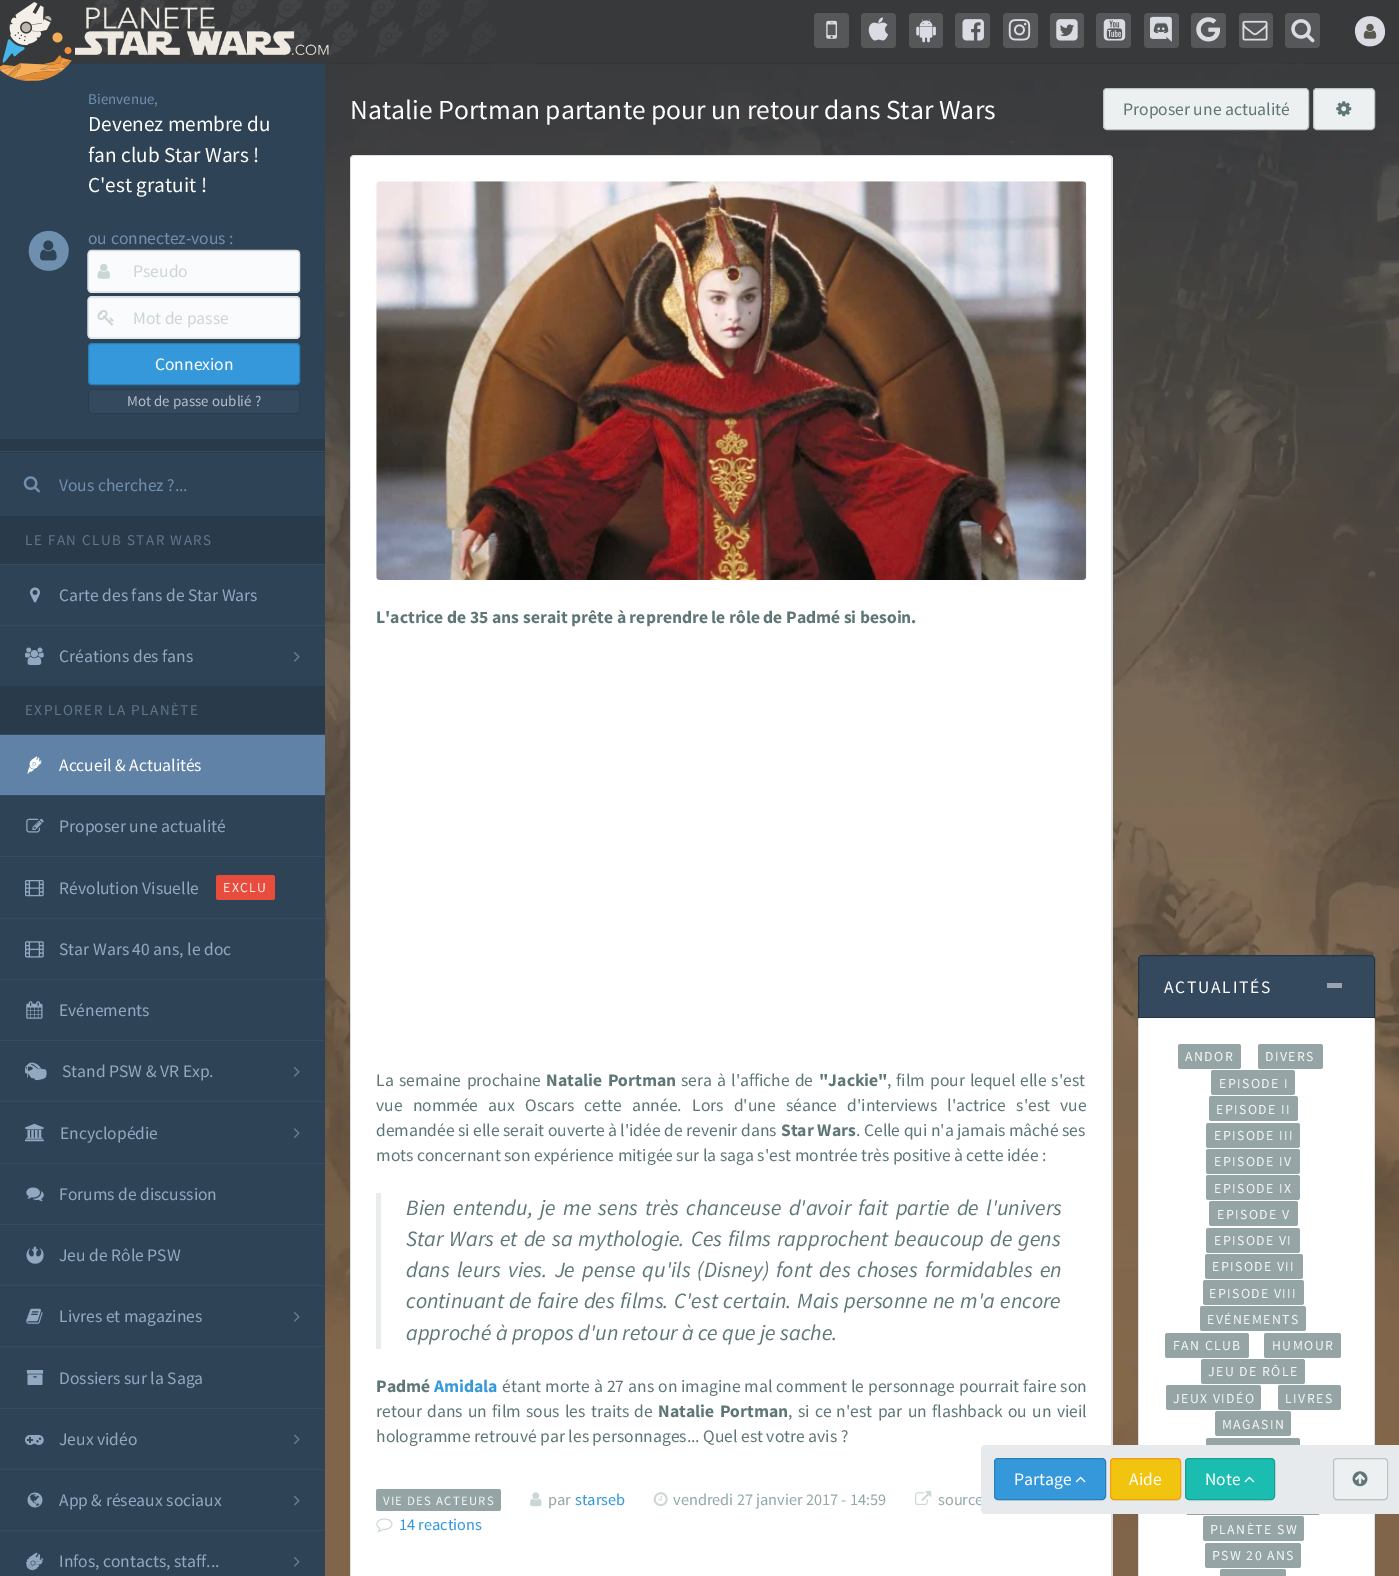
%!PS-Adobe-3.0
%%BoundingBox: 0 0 1399 1576
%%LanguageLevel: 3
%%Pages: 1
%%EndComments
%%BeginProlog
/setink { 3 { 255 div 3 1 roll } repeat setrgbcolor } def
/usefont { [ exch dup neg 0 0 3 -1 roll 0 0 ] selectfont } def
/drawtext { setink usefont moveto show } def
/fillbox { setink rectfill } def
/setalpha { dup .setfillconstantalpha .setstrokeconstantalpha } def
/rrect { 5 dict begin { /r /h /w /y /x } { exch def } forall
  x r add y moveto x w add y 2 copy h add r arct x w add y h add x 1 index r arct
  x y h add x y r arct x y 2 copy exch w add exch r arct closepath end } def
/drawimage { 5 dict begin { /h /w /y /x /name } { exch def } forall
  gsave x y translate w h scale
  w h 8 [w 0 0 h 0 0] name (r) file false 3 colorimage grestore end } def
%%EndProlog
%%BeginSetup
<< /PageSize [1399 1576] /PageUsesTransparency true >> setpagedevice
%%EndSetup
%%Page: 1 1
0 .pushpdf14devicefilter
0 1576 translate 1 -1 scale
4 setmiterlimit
0 0 1399 1576 128 101 74 fillbox
(assets/img1.rgb) 325 63 1074 1467 drawimage
0 63 325 1513 47 67 86 fillbox
0.08 setalpha
18 63 1381 1 0 0 0 fillbox
1 setalpha
0 0 1399 63 56 57 59 fillbox
(assets/img2.rgb) 90 0 406 57 drawimage
(assets/img3.rgb) 0 2 72 79 drawimage
(assets/img4.rgb) 75 7 254 48 drawimage
86 87 88 setink
814 13 35 35 4 rrect fill
(assets/img5.rgb) 826 20 11 19 drawimage
861 13 35 35 4 rrect fill
(assets/img6.rgb) 868 17 21 24 drawimage
909 13 34 35 4 rrect fill
(assets/img7.rgb) 916 19 20 24 drawimage
955 13 35 35 4 rrect fill
(assets/img8.rgb) 962 19 22 22 drawimage
1003 13 35 35 4 rrect fill
(assets/img9.rgb) 1008 19 23 22 drawimage
1050 13 34 35 4 rrect fill
(assets/img10.rgb) 1056 19 22 22 drawimage
1096 13 35 35 4 rrect fill
(assets/img11.rgb) 1103 19 23 22 drawimage
1144 13 35 35 4 rrect fill
(assets/img12.rgb) 1150 16 22 26 drawimage
1191 13 35 35 4 rrect fill
(assets/img13.rgb) 1196 17 25 25 drawimage
1239 13 34 35 4 rrect fill
(assets/img14.rgb) 1242 20 26 21 drawimage
1285 13 35 35 4 rrect fill
(assets/img15.rgb) 1291 19 24 24 drawimage
217 220 227 setink
1383 23.5 moveto 1384.5 26.5 1385 29.5 1385 32.5 curveto 1384 47 1364.5 51.5 1357 39 curveto 1355.5 36 1355 33 1355 30 curveto 1356 15.5 1375.5 11 1383 23.5 curveto closepath fill
(assets/img16.rgb) 1363 23 14 16 drawimage
111 143 175 setink
66 241 moveto 68 244 69 248 68.5 252 curveto 67.5 272 41.5 277.5 31.5 261 curveto 29.5 257.5 28.5 253.5 29 249.5 curveto 30 230 56 224 66 241 curveto closepath fill
(assets/img17.rgb) 40 240 17 21 drawimage
(Bienvenue,) 88 104 /SourceSansPro-Regular 15 111 143 175 drawtext
(Devenez membre du) 88 131 /SourceSansPro-Regular 21.25 255 255 255 drawtext
(fan club Star Wars !) 88 162 /SourceSansPro-Regular 21.25 255 255 255 drawtext
(C'est gratuit !) 88 192 /SourceSansPro-Regular 21.25 255 255 255 drawtext
(ou connectez-vous :) 88 244 /SourceSansPro-Regular 17.5 111 143 175 drawtext
250 251 252 setink
88 250 212 43 4 rrect fill
248 248 249 setink
91 252 moveto 297 252 lineto 299 254 lineto 299 255 lineto 299 254 lineto 299 252 298 251 296 251 curveto 92 251 lineto 90 251 89 252 89 254 curveto 89 255 lineto 89 254 90 252 91 252 curveto closepath fill
212 218 223 setink
1.2 setlinewidth
89 251.5 moveto 91 250.5 lineto 296 250.5 lineto 298.5 251.5 lineto stroke
218 223 227 setink
298.5 251.5 moveto 299.5 254 lineto 299.5 289 lineto 298.5 291 lineto 296 292 lineto 91 292 lineto 89 291 lineto 88 289 lineto 88 254 lineto 89 251.5 lineto stroke
(assets/img18.rgb) 97 263 13 16 drawimage
(Pseudo) 133 277 /SourceSansPro-Regular 17.5 203 214 214 drawtext
250 251 252 setink
88 296 212 43 4 rrect fill
248 248 249 setink
91 299 moveto 296 299 lineto 298 299 299 300 299 301 curveto 299 299 298 298 296 298 curveto 92 298 lineto 90 298 89 299 89 301 curveto 89 300 90 299 91 299 curveto closepath fill
212 218 223 setink
89 298 moveto 91 297 lineto 296 297 lineto 298.5 298 lineto stroke
218 223 227 setink
298.5 298 moveto 299.5 300 lineto 299.5 335 lineto 298.5 337 lineto 296 338 lineto 91 338 lineto 89 337 lineto 88 335 lineto 88 300 lineto 89 298 lineto stroke
(assets/img19.rgb) 97 310 17 16 drawimage
(Mot de passe) 133 324 /SourceSansPro-Regular 17.5 203 214 214 drawtext
45 64 83 setink
88 384 moveto 89 385 90 386 92 386 curveto 296 386 lineto 299 386 300 384 300 381 curveto 300 383 298 385 296 385 curveto 91 385 lineto 90 385 89 384 88 384 curveto closepath fill
52 152 219 setink
88.5 343.5 211 41 3.5 rrect gsave fill grestore
41 128 185 setink
1 setlinewidth
stroke
(Connexion) 155 370 /SourceSansPro-Regular 17.5 255 255 255 drawtext
45 64 83 setink
88 412 moveto 90 415 lineto 92 415 lineto 297 415 lineto 299 413 lineto 300 410 lineto 300 412 298 414 296 414 curveto 91 414 lineto 90 414 89 413 88 412 curveto closepath fill
52 73 94 setink
88.5 389.5 211 24 3.5 rrect gsave fill grestore
44 62 80 setink
stroke
(Mot de passe oublié ?) 127 406 /SourceSansPro-Regular 15 183 190 202 drawtext
0 439 325 14 41 58 74 fillbox
0 451 325 1 53 75 96 fillbox
(assets/img20.rgb) 23 476 17 17 drawimage
(Vous cherchez ?...) 59 491 /SourceSansPro-Regular 17.5 111 143 175 drawtext
0 516 325 48 41 58 74 fillbox
0 564 325 1 53 75 96 fillbox
/SourceSansPro-Regular 15 usefont
96 118 140 setink
25 545 moveto 1.5 0 (LE FAN CLUB STAR WARS) ashow
(assets/img21.rgb) 30 587 10 16 drawimage
(Carte des fans de Star Wars) 59 601 /SourceSansPro-Regular 17.5 144 169 193 drawtext
0 625 325 1 53 75 96 fillbox
(assets/img22.rgb) 25 647 19 18 drawimage
(Créations des fans) 59 662 /SourceSansPro-Regular 17.5 144 169 193 drawtext
(assets/img23.rgb) 294 652 6 10 drawimage
0 686 325 48 41 58 74 fillbox
0 734 325 1 53 75 96 fillbox
/SourceSansPro-Regular 15 usefont
96 118 140 setink
25 715 moveto 1.5 0 (EXPLORER LA PLANÈTE) ashow
0 735 325 60 95 130 166 fillbox
(assets/img24.rgb) 27 756 15 18 drawimage
(Accueil & Actualités) 59 771 /SourceSansPro-Regular 17.5 255 255 255 drawtext
0 795 325 1 53 75 96 fillbox
(assets/img25.rgb) 26 818 18 15 drawimage
(Proposer une actualité) 59 832 /SourceSansPro-Regular 17.5 144 169 193 drawtext
0 856 325 1 53 75 96 fillbox
(assets/img26.rgb) 25 880 19 17 drawimage
(Révolution Visuelle) 59 894 /SourceSansPro-Regular 17.5 144 169 193 drawtext
231 76 60 setink
216 875 59 25 2.5 rrect fill
/SourceSansPro-Regular 13.75 usefont
253 237 236 setink
223 892 moveto 1.4 0 (EXCLU) ashow
0 918 325 1 53 75 96 fillbox
(assets/img27.rgb) 25 941 19 17 drawimage
(Star Wars 40 ans, le doc) 59 955 /SourceSansPro-Regular 17.5 144 169 193 drawtext
0 979 325 1 53 75 96 fillbox
(assets/img28.rgb) 26 1001 17 18 drawimage
(Evénements) 59 1016 /SourceSansPro-Regular 17.5 144 169 193 drawtext
0 1040 325 1 53 75 96 fillbox
(assets/img29.rgb) 25 1062 22 19 drawimage
(Stand PSW & VR Exp.) 62 1077 /SourceSansPro-Regular 17.5 144 169 193 drawtext
(assets/img23.rgb) 294 1067 6 10 drawimage
0 1101 325 1 53 75 96 fillbox
(assets/img30.rgb) 25 1123 19 19 drawimage
(Encyclopédie) 60 1139 /SourceSansPro-Regular 17.5 144 169 193 drawtext
(assets/img31.rgb) 294 1128 6 10 drawimage
0 1163 325 1 53 75 96 fillbox
(assets/img32.rgb) 26 1187 18 15 drawimage
(Forums de discussion) 59 1200 /SourceSansPro-Regular 17.5 144 169 193 drawtext
0 1224 325 1 53 75 96 fillbox
(assets/img33.rgb) 26 1246 18 18 drawimage
(Jeu de Rôle PSW) 59 1261 /SourceSansPro-Regular 17.5 144 169 193 drawtext
0 1285 325 1 53 75 96 fillbox
(assets/img34.rgb) 26 1308 17 16 drawimage
(Livres et magazines) 59 1322 /SourceSansPro-Regular 17.5 144 169 193 drawtext
(assets/img23.rgb) 294 1312 6 10 drawimage
0 1346 325 1 53 75 96 fillbox
(assets/img35.rgb) 26 1370 18 15 drawimage
(Dossiers sur la Saga) 59 1384 /SourceSansPro-Regular 17.5 144 169 193 drawtext
0 1408 325 1 53 75 96 fillbox
(assets/img36.rgb) 25 1435 19 10 drawimage
(Jeux vidéo) 59 1445 /SourceSansPro-Regular 17.5 144 169 193 drawtext
(assets/img37.rgb) 294 1434 6 11 drawimage
0 1469 325 1 53 75 96 fillbox
(assets/img38.rgb) 27 1492 16 16 drawimage
(App & réseaux sociaux) 59 1506 /SourceSansPro-Regular 17.5 144 169 193 drawtext
(assets/img39.rgb) 294 1495 6 11 drawimage
0 1530 325 1 53 75 96 fillbox
(assets/img40.rgb) 26 1552 18 19 drawimage
(Infos, contacts, staff...) 59 1567 /SourceSansPro-Regular 17.5 144 169 193 drawtext
(assets/img23.rgb) 294 1557 6 10 drawimage
(Natalie Portman partante pour un retour dans Star Wars) 350 119 /SourceSansPro-Regular 27.5 255 255 255 drawtext
0.04 setalpha
0 0 0 setink
1103 129 moveto 1104 130 1105 131 1107 131 curveto 1305 131 lineto 1307 131 1309 129 1309 127 curveto 1309 92 lineto 1309 126 lineto 1309 128 1307 130 1305 130 curveto 1106 130 lineto 1105 130 1104 129 1103 129 curveto closepath fill
1 setalpha
236 240 241 setink
1103.5 88.5 205 41 3.5 rrect gsave fill grestore
189 195 199 setink
stroke
(Proposer une actualité) 1123 115 /SourceSansPro-Regular 17.5 95 118 118 drawtext
236 240 241 setink
1313.5 88.5 61 41 3.5 rrect gsave fill grestore
189 195 199 setink
stroke
(assets/img41.rgb) 1336 101 16 16 drawimage
218 223 227 setink
350 155 763 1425 4 rrect fill
255 255 255 setink
351 156 760 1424 4 rrect fill
(assets/img42.rgb) 376 181 711 399 drawimage
(L'actrice de 35 ans serait prête à reprendre le rôle de Padmé si besoin.) 376 623 /SourceSansPro-Bold 17.5 95 118 118 drawtext
/SourceSansPro-Regular 17.5 usefont
376 1086 moveto 2 0 32 (La semaine prochaine) widthshow
/SourceSansPro-Bold 17.5 usefont
546 1086 moveto 2 0 32 (Natalie Portman) widthshow
/SourceSansPro-Regular 17.5 usefont
681 1086 moveto 1.5 0 32 (sera à l'affiche de) widthshow
("Jackie") 819 1086 /SourceSansPro-Bold 17.5 95 118 118 drawtext
/SourceSansPro-Regular 17.5 usefont
887 1086 moveto 1.5 0 32 (, film pour lequel elle s'est) widthshow
376 1111 moveto 6.75 0 32 (vue nommée aux Oscars cette année. Lors d'une séance d'interviews l'actrice s'est vue) widthshow
(demandée si elle serait ouverte à l'idée de revenir dans) 376 1136 /SourceSansPro-Regular 17.5 95 118 118 drawtext
(Star Wars) 781 1136 /SourceSansPro-Bold 17.5 95 118 118 drawtext
(. Celle qui n'a jamais mâché ses) 856 1136 /SourceSansPro-Regular 17.5 95 118 118 drawtext
(mots concernant son expérience mitigée sur la saga s'est montrée très positive à cette idée :) 376 1161 /SourceSansPro-Regular 17.5 95 118 118 drawtext
376 1193 5 156 232 236 236 fillbox
/SourceSansPro-Italic 21.9 usefont
95 118 118 setink
406 1215 moveto 3 0 32 (Bien entendu, je me sens très chanceuse d'avoir fait partie de l'univers) widthshow
406 1246 moveto 1.75 0 32 (Star Wars et de sa mythologie. Ces films rapprochent beaucoup de gens) widthshow
406 1277 moveto 2.9 0 32 (dans leurs vies. Je pense qu'ils \(Disney\) font des choses formidables en) widthshow
406 1308 moveto 1.25 0 32 (continuant de faire des films. C'est certain. Mais personne ne m'a encore) widthshow
(approché à propos d'un retour à ce que je sache.) 406 1340 /SourceSansPro-Italic 21.9 95 118 118 drawtext
(Padmé) 376 1392 /SourceSansPro-Bold 17.5 95 118 118 drawtext
(Amidala) 434 1392 /SourceSansPro-Bold 17.5 52 152 219 drawtext
/SourceSansPro-Regular 17.5 usefont
95 118 118 setink
502 1392 moveto 0.5 0 32 (étant morte à 27 ans on imagine mal comment le personnage pourrait faire son) widthshow
376 1417 moveto 1.75 0 32 (retour dans un film sous les traits de) widthshow
/SourceSansPro-Bold 17.5 usefont
658 1417 moveto 2 0 32 (Natalie Portman) widthshow
/SourceSansPro-Regular 17.5 usefont
788 1417 moveto 1.75 0 32 (, si ce n'est par un flashback ou un vieil) widthshow
(hologramme retrouvé par les personnages... Quel est votre avis ?) 376 1442 /SourceSansPro-Regular 17.5 95 118 118 drawtext
149 165 166 setink
376 1489 125 22 2.5 rrect fill
/SourceSansPro-Regular 12.75 usefont
244 246 246 setink
383 1505 moveto 1.25 0 (VIE DES ACTEURS) ashow
(assets/img43.rgb) 530 1492 12 15 drawimage
(par) 548 1505 /SourceSansPro-Regular 16.25 147 168 168 drawtext
(starseb) 575 1505 /SourceSansPro-Regular 16.25 52 152 219 drawtext
(assets/img44.rgb) 653 1492 15 15 drawimage
(vendredi 27 janvier 2017 - 14:59) 673 1505 /SourceSansPro-Regular 16.25 147 168 168 drawtext
(assets/img45.rgb) 915 1491 17 14 drawimage
(source) 938 1505 /SourceSansPro-Regular 16.25 147 168 168 drawtext
(assets/img46.rgb) 376 1518 17 15 drawimage
(14 reactions) 399 1530 /SourceSansPro-Regular 16.25 52 152 219 drawtext
218 223 227 setink
1138 955 237 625 4 rrect fill
52 73 94 setink
1142 955.5 moveto 1371 955.5 lineto 1373 955.5 1374.5 957 1374.5 959 curveto 1374.5 1017.5 lineto 1138.5 1017.5 lineto 1138.5 959 lineto 1138.5 957 1140 955.5 1142 955.5 curveto closepath gsave fill grestore
37 53 68 setink
stroke
/SourceSansPro-Regular 17.5 usefont
255 255 255 setink
1164 993 moveto 1.75 0 (ACTUALITÉS) ashow
1327 983 15 5 154 164 175 fillbox
1139 1018 235 558 255 255 255 fillbox
149 165 166 setink
1178 1044 63 25 2.5 rrect fill
/SourceSansPro-Regular 13.75 usefont
244 246 246 setink
1185 1061 moveto 1.4 0 (ANDOR) ashow
149 165 166 setink
1258 1044 65 25 2.5 rrect fill
244 246 246 setink
1265 1061 moveto 1.4 0 (DIVERS) ashow
149 165 166 setink
1211 1070 84 25 2.5 rrect fill
244 246 246 setink
1219 1088 moveto 1.4 0 (EPISODE I) ashow
149 165 166 setink
1209 1096 89 25 2.5 rrect fill
244 246 246 setink
1216 1114 moveto 1.4 0 (EPISODE II) ashow
149 165 166 setink
1206 1123 94 25 2.5 rrect fill
244 246 246 setink
1214 1140 moveto 1.4 0 (EPISODE III) ashow
149 165 166 setink
1206 1149 94 25 2.5 rrect fill
244 246 246 setink
1214 1166 moveto 1.4 0 (EPISODE IV) ashow
149 165 166 setink
1206 1175 94 25 2.5 rrect fill
244 246 246 setink
1214 1193 moveto 1.4 0 (EPISODE IX) ashow
149 165 166 setink
1209 1201 89 25 2.5 rrect fill
244 246 246 setink
1217 1219 moveto 1.4 0 (EPISODE V) ashow
149 165 166 setink
1206 1228 94 25 2.5 rrect fill
244 246 246 setink
1214 1245 moveto 1.4 0 (EPISODE VI) ashow
149 165 166 setink
1205 1254 98 25 2.5 rrect fill
244 246 246 setink
1212 1271 moveto 1.4 0 (EPISODE VII) ashow
149 165 166 setink
1203 1280 101 25 2.5 rrect fill
244 246 246 setink
1209 1298 moveto 1.4 0 (EPISODE VIII) ashow
149 165 166 setink
1200 1306 106 25 2.5 rrect fill
244 246 246 setink
1207 1324 moveto 1.4 0 (EVÉNEMENTS) ashow
149 165 166 setink
1165 1333 84 25 2.5 rrect fill
244 246 246 setink
1173 1350 moveto 1.4 0 (FAN CLUB) ashow
149 165 166 setink
1264 1333 77 25 2.5 rrect fill
244 246 246 setink
1272 1350 moveto 1.4 0 (HUMOUR) ashow
149 165 166 setink
1201 1359 104 25 2.5 rrect fill
244 246 246 setink
1208 1376 moveto 1.4 0 (JEU DE RÔLE) ashow
149 165 166 setink
1166 1385 95 25 2.5 rrect fill
244 246 246 setink
1173 1403 moveto 1.4 0 (JEUX VIDÉO) ashow
149 165 166 setink
1278 1385 63 25 2.5 rrect fill
244 246 246 setink
1285 1403 moveto 1.4 0 (LIVRES) ashow
149 165 166 setink
1215 1411 76 25 2.5 rrect fill
244 246 246 setink
1222 1429 moveto 1.4 0 (MAGASIN) ashow
149 165 166 setink
1206 1438 94 25 2.5 rrect fill
1186 1490 134 25 2.5 rrect fill
1203 1516 101 25 2.5 rrect fill
244 246 246 setink
1210 1534 moveto 1.4 0 (PLANÈTE SW) ashow
149 165 166 setink
1205 1543 96 25 2.5 rrect fill
244 246 246 setink
1212 1560 moveto 1.4 0 (PSW 20 ANS) ashow
149 165 166 setink
1220 1569 66 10 2.5 rrect fill
230 234 237 setink
985 1445 moveto 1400 1445 lineto 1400 1514 lineto 985 1514 lineto 983 1514 981 1512 981 1510 curveto 981 1449 lineto 981 1447 983 1445 985 1445 curveto closepath fill
221 225 228 setink
994 1498 moveto 994 1500 996 1501 998 1501 curveto 1102 1501 lineto 1104 1501 1106 1500 1106 1498 curveto 1104 1500 lineto 998 1500 lineto 996 1500 995 1499 994 1498 curveto closepath fill
52 152 219 setink
994.5 1458.5 111 41 3.5 rrect gsave fill grestore
41 128 185 setink
stroke
(Partage) 1014 1485 /SourceSansPro-Regular 17.5 255 255 255 drawtext
(assets/img47.rgb) 1075 1476 11 7 drawimage
221 225 228 setink
1110 1496 moveto 1110 1497 lineto 1110 1499 1112 1501 1114 1501 curveto 1177 1501 lineto 1179 1501 1181 1500 1181 1498 curveto 1180 1499 1179 1500 1178 1500 curveto 1114 1500 lineto 1112 1500 1110 1498 1110 1496 curveto closepath fill
241 196 15 setink
1110.5 1458.5 70 41 3.5 rrect gsave fill grestore
243 156 18 setink
stroke
(Aide) 1129 1485 /SourceSansPro-Regular 17.5 255 255 255 drawtext
221 225 228 setink
1185 1496 moveto 1185 1504 1199 1501 1203 1501 curveto 1257 1501 lineto 1261 1501 1275 1504 1275 1496 curveto 1275 1498 1273 1500 1271 1500 curveto 1189 1500 lineto 1187 1500 1185 1498 1185 1496 curveto closepath fill
26 189 175 setink
1185.5 1458.5 89 41 3.5 rrect gsave fill grestore
22 161 149 setink
stroke
(Note) 1205 1485 /SourceSansPro-Regular 17.5 255 255 255 drawtext
(assets/img48.rgb) 1244 1476 11 7 drawimage
221 225 228 setink
1333 1499 moveto 1334 1500 1335 1501 1337 1501 curveto 1384 1501 lineto 1386 1501 1388 1499 1388 1497 curveto 1388 1463 lineto 1387 1461 lineto 1388 1490 lineto 1388 1501 1387 1500 1376 1500 curveto 1344 1500 lineto 1342 1500 1336 1501 1333 1499 curveto closepath fill
236 240 241 setink
1333.5 1458.5 54 41 3.5 rrect gsave fill grestore
189 195 199 setink
stroke
(assets/img49.rgb) 1352 1471 16 16 drawimage
.poppdf14devicefilter showpage
%%EOF
